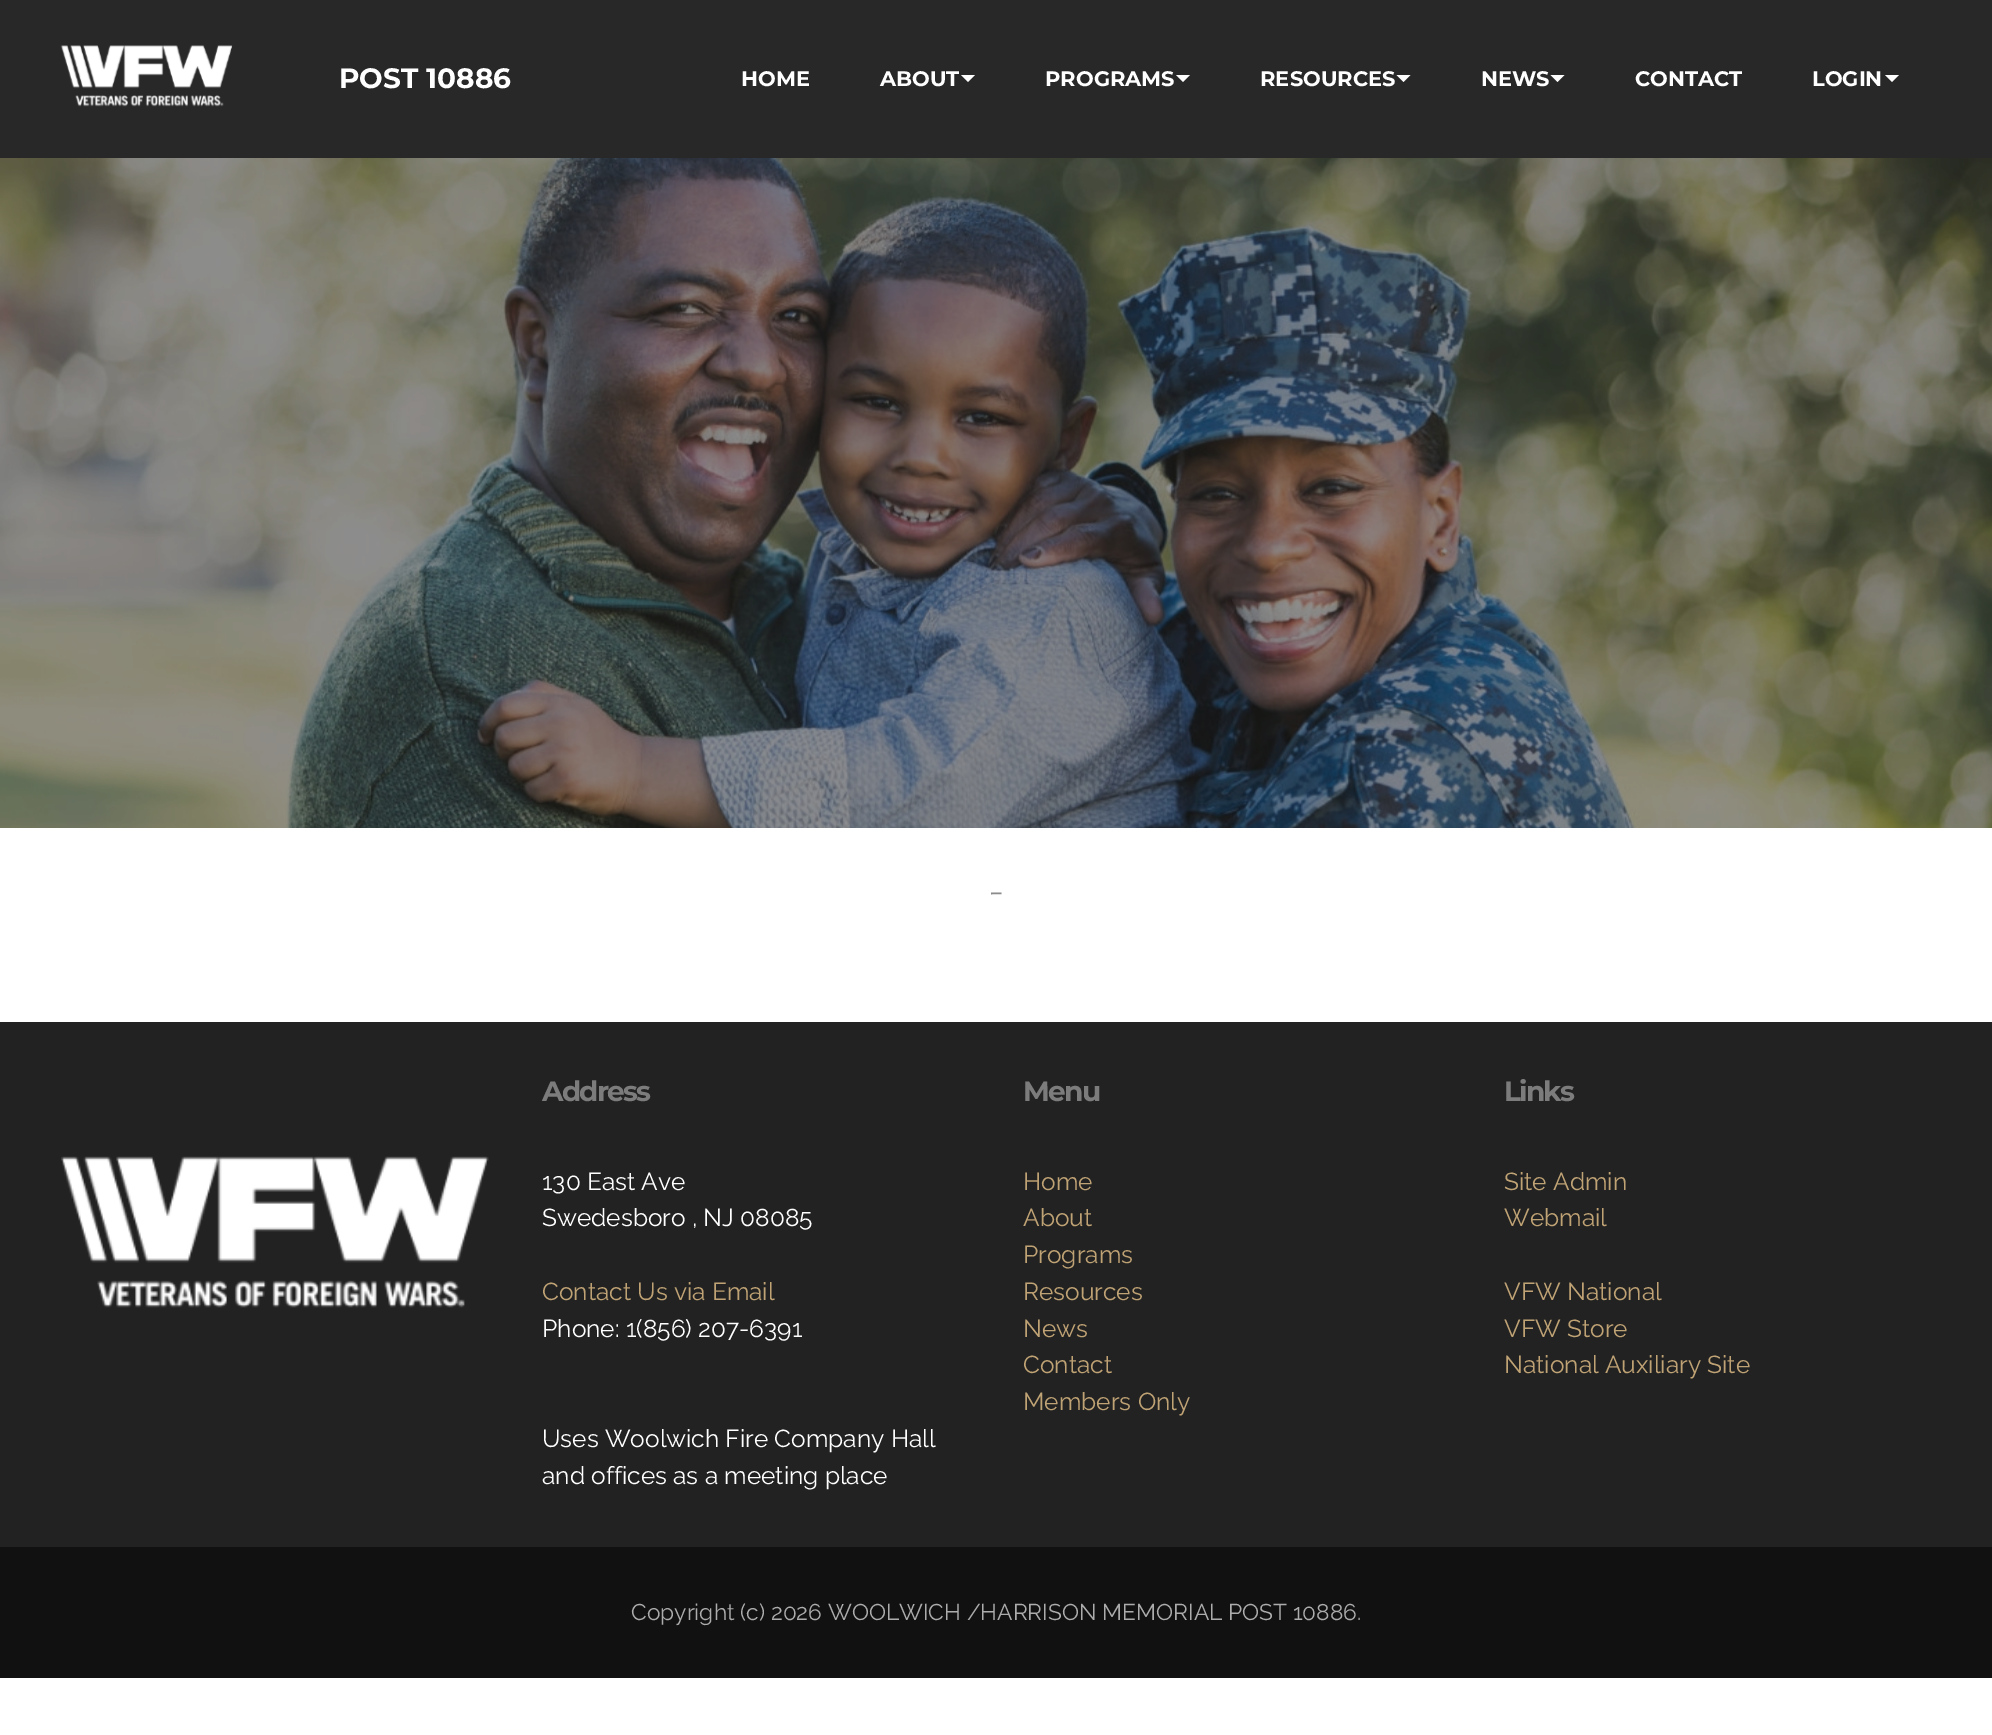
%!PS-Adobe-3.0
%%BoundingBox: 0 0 1992 1735
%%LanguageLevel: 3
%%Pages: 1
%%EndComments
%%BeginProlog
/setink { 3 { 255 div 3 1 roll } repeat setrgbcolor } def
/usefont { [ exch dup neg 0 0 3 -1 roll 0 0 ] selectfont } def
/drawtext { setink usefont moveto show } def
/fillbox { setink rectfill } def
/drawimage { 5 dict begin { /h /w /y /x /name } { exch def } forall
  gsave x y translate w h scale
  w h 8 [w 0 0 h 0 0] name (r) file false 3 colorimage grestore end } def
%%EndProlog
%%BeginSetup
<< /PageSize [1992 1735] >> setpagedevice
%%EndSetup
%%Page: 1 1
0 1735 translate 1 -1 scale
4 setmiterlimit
0 0 1992 1735 255 255 255 fillbox
0 0 1992 158 40 40 40 fillbox
(assets/img1.rgb) 60 45 173 62 drawimage
(POST 10886) 339 88 /Montserrat-Bold 28 255 255 255 drawtext
(HOME) 741 86 /Montserrat-Bold 21 255 255 255 drawtext
(ABOUT) 880 86 /Montserrat-Bold 21 255 255 255 drawtext
961 75 moveto 975 75 lineto 968 82 lineto closepath fill
(PROGRAMS) 1045 86 /Montserrat-Bold 21 255 255 255 drawtext
1176 75 moveto 1190 75 lineto 1183 82 lineto closepath fill
(RESOURCES) 1260 86 /Montserrat-Bold 21 255 255 255 drawtext
1396.5 75 moveto 1410.5 75 lineto 1403.5 82 lineto closepath fill
(NEWS) 1481 86 /Montserrat-Bold 21 255 255 255 drawtext
1550.5 75 moveto 1564.5 75 lineto 1557.5 82 lineto closepath fill
(CONTACT) 1635 86 /Montserrat-Bold 21 255 255 255 drawtext
(LOGIN) 1812 86 /Montserrat-Bold 21 255 255 255 drawtext
1885 75 moveto 1899 75 lineto 1892 82 lineto closepath fill
(assets/img2.rgb) 0 158 1992 670 drawimage
(-) 989 903 /Lora-Italic 30 140 140 140 drawtext
0 1022 1992 525 34 34 34 fillbox
(assets/img3.rgb) 61 1156 428 152 drawimage
/Montserrat-Bold 28 usefont
124 124 124 setink
542 1101 moveto -1.75 0 (Address) ashow
(130 East Ave) 542 1190 /Raleway-Regular 24.5 255 255 255 drawtext
(Swedesboro , NJ 08085) 542 1226 /Raleway-Regular 24.5 255 255 255 drawtext
(Contact Us via Email) 542 1300 /Raleway-Regular 24.5 192 163 117 drawtext
(Phone: 1\(856\) 207-6391) 542 1337 /Raleway-Regular 24.5 255 255 255 drawtext
(Uses Woolwich Fire Company Hall) 542 1447 /Raleway-Regular 24.5 255 255 255 drawtext
(and offices as a meeting place) 542 1484 /Raleway-Regular 24.5 255 255 255 drawtext
/Montserrat-Bold 28 usefont
124 124 124 setink
1023 1101 moveto -1.75 0 (Menu) ashow
(Home) 1023 1190 /Raleway-Regular 24.5 192 163 117 drawtext
(About) 1023 1226 /Raleway-Regular 24.5 192 163 117 drawtext
(Programs) 1023 1263 /Raleway-Regular 24.5 192 163 117 drawtext
(Resources) 1023 1300 /Raleway-Regular 24.5 192 163 117 drawtext
(News) 1023 1337 /Raleway-Regular 24.5 192 163 117 drawtext
(Contact) 1023 1373 /Raleway-Regular 24.5 192 163 117 drawtext
(Members Only) 1023 1410 /Raleway-Regular 24.5 192 163 117 drawtext
/Montserrat-Bold 28 usefont
124 124 124 setink
1504 1101 moveto -1.75 0 (Links) ashow
(Site Admin) 1504 1190 /Raleway-Regular 24.5 192 163 117 drawtext
(Webmail) 1504 1226 /Raleway-Regular 24.5 192 163 117 drawtext
(VFW National) 1504 1300 /Raleway-Regular 24.5 192 163 117 drawtext
(VFW Store) 1504 1337 /Raleway-Regular 24.5 192 163 117 drawtext
(National Auxiliary Site) 1504 1373 /Raleway-Regular 24.5 192 163 117 drawtext
0 1547 1992 131 17 17 17 fillbox
(Copyright \(c\) 2026 WOOLWICH /HARRISON MEMORIAL POST 10886.) 631 1620 /Raleway-Regular 22.75 172 172 172 drawtext
showpage
%%EOF
